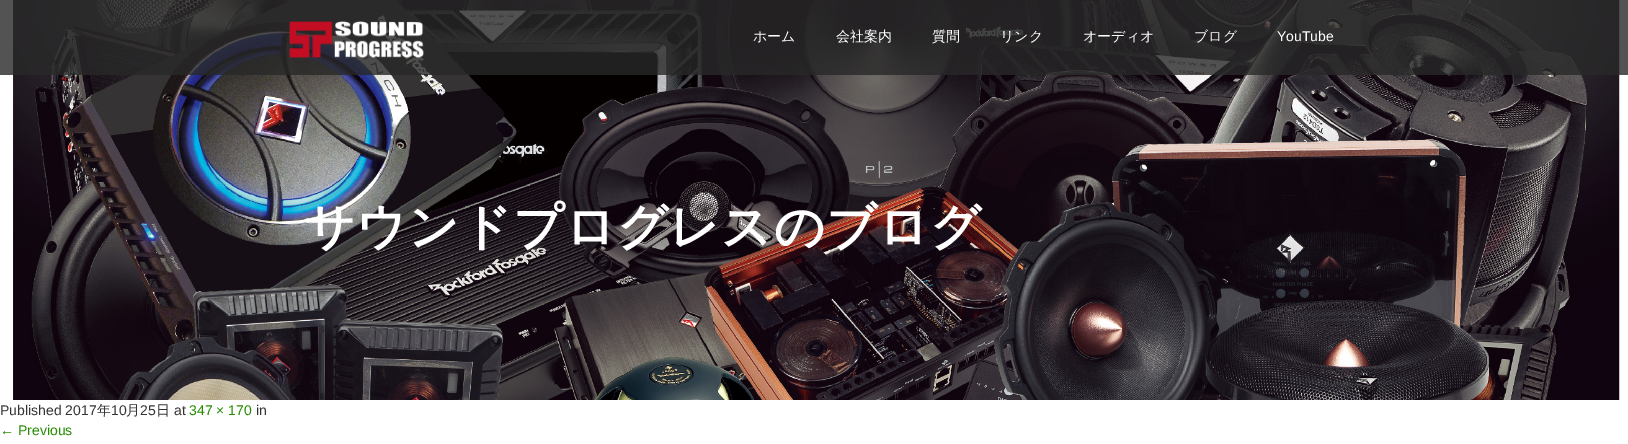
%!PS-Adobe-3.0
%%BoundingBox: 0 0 1628 444
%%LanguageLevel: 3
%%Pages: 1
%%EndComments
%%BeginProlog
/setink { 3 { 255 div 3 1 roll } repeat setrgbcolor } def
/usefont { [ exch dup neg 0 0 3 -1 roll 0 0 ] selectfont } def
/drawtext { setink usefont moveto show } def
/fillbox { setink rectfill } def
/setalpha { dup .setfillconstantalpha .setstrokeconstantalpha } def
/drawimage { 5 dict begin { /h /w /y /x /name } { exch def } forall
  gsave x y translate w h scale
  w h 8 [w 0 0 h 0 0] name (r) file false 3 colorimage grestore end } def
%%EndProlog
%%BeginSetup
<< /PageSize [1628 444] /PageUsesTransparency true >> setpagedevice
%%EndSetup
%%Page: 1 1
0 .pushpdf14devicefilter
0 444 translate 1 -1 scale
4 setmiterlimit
0 0 1628 444 255 255 255 fillbox
(assets/img1.rgb) 13 0 1607 400 drawimage
0.8 setalpha
0 0 1628 75 40 40 40 fillbox
1 setalpha
(assets/img2.rgb) 289 21 135 37 drawimage
(ホーム) 753 41 /WenQuanYiZenHei-Medium 14 255 255 255 drawtext
(会社案内) 836 41 /WenQuanYiZenHei-Medium 14 255 255 255 drawtext
(質問) 932 41 /WenQuanYiZenHei-Medium 14 255 255 255 drawtext
(リンク) 1000 41 /WenQuanYiZenHei-Medium 14 255 255 255 drawtext
(オーディオ) 1083 41 /WenQuanYiZenHei-Medium 14 255 255 255 drawtext
(ブログ) 1194 41 /WenQuanYiZenHei-Medium 14 255 255 255 drawtext
(YouTube) 1277 41 /LiberationSans-Regular 14 255 255 255 drawtext
/WenQuanYiZenHei-Bold 50 usefont
304 244 moveto 1 0 (サウンドプログレスのブログ) ashow
(Published 2017) 0 415 /LiberationSans-Regular 14 51 51 51 drawtext
(年) 97 415 /WenQuanYiZenHei-Medium 14 51 51 51 drawtext
(10) 111 415 /LiberationSans-Regular 14 51 51 51 drawtext
(月) 126 415 /WenQuanYiZenHei-Medium 14 51 51 51 drawtext
(25) 140 415 /LiberationSans-Regular 14 51 51 51 drawtext
(日) 156 415 /WenQuanYiZenHei-Medium 14 51 51 51 drawtext
(at) 174 415 /LiberationSans-Regular 14 51 51 51 drawtext
(347 × 170) 189 415 /LiberationSans-Regular 14 35 140 0 drawtext
(in) 256 415 /LiberationSans-Regular 14 51 51 51 drawtext
(← Previous) 0 435 /LiberationSans-Regular 14 35 140 0 drawtext
.poppdf14devicefilter showpage
%%EOF
